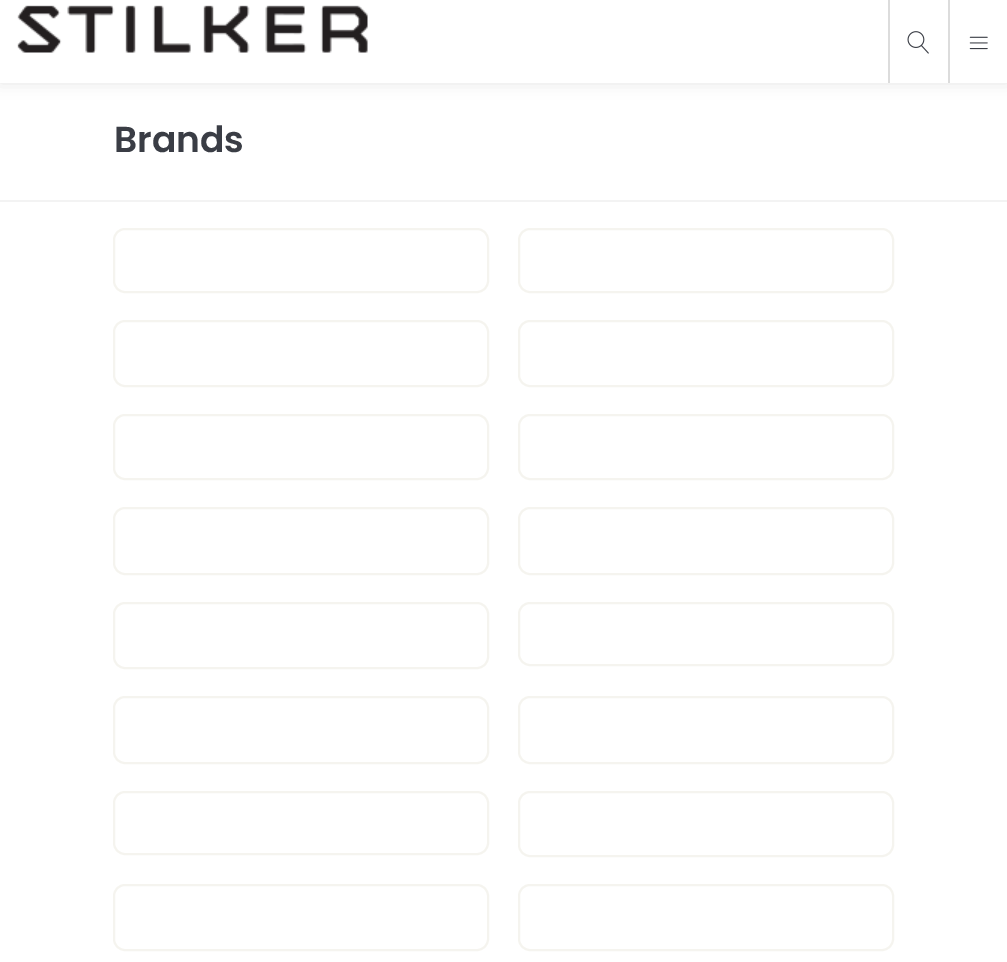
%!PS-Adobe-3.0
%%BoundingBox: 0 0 1007 962
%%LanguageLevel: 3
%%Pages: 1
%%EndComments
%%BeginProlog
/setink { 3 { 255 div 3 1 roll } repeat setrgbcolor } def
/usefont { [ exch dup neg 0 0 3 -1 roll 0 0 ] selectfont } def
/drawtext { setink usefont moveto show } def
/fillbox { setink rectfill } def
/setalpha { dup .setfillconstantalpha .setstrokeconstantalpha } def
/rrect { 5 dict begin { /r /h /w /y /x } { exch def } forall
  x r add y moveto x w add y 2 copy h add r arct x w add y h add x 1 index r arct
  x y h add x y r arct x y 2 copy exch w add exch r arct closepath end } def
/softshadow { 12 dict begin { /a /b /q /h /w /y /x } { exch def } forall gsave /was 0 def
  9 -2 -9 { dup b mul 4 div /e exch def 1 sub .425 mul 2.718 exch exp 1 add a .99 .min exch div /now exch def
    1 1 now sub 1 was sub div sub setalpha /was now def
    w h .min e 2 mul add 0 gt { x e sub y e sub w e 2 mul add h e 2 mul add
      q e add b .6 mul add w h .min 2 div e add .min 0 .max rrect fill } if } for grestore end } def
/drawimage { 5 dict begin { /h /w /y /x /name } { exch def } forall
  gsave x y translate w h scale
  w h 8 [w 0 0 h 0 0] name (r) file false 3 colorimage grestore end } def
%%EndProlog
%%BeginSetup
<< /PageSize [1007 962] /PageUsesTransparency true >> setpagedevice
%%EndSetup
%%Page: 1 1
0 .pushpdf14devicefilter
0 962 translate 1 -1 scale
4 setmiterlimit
0 0 1007 962 255 255 255 fillbox
0 0 0 setink
0 0 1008 83 0 7.5 0.1 softshadow
0 0 1007 83 255 255 255 fillbox
(assets/img1.rgb) 17 5 351 48 drawimage
888 0 2 83 220 220 220 fillbox
(assets/img2.rgb) 907 31 22 23 drawimage
948 0 2 83 220 220 220 fillbox
(assets/img3.rgb) 969 36 19 14 drawimage
0 200 1007 2 243 243 243 fillbox
(Brands) 114 152 /Poppins-SemiBold 36 58 61 69 drawtext
245 244 239 setink
2 setlinewidth
114 229 374 63 11 rrect stroke
519 229 374 63 11 rrect stroke
114 321 374 65 11 rrect stroke
519 321 374 65 11 rrect stroke
114 415 374 64 11 rrect stroke
519 415 374 64 11 rrect stroke
114 508 374 66 11 rrect stroke
519 508 374 66 11 rrect stroke
114 603 374 65 11 rrect stroke
519 603 374 62 11 rrect stroke
114 697 374 66 11 rrect stroke
519 697 374 66 11 rrect stroke
114 792 374 62 11 rrect stroke
519 792 374 64 11 rrect stroke
114 885 374 65 11 rrect stroke
519 885 374 65 11 rrect stroke
.poppdf14devicefilter showpage
%%EOF
